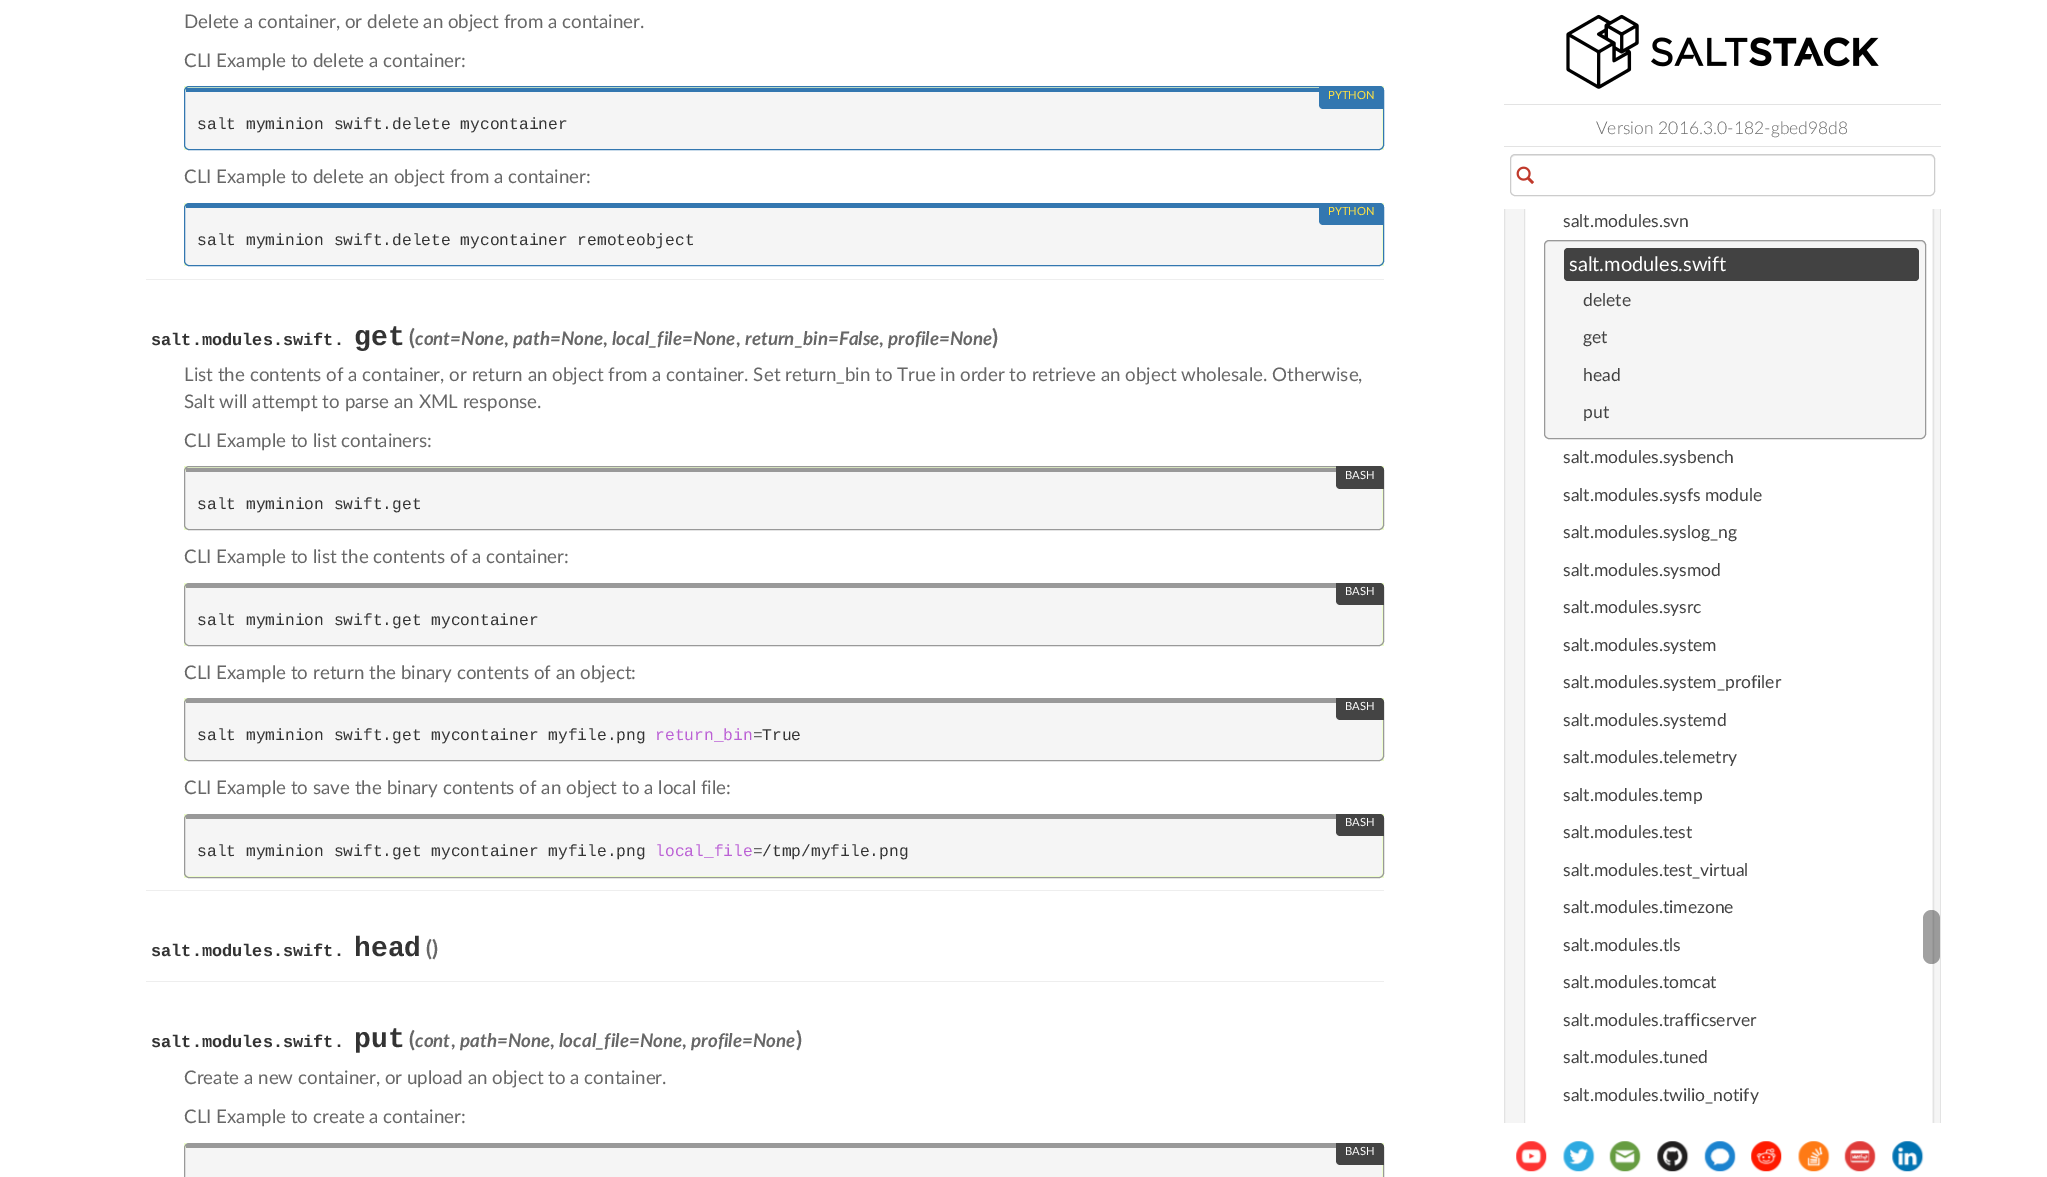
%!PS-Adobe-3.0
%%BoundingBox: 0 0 2047 1177
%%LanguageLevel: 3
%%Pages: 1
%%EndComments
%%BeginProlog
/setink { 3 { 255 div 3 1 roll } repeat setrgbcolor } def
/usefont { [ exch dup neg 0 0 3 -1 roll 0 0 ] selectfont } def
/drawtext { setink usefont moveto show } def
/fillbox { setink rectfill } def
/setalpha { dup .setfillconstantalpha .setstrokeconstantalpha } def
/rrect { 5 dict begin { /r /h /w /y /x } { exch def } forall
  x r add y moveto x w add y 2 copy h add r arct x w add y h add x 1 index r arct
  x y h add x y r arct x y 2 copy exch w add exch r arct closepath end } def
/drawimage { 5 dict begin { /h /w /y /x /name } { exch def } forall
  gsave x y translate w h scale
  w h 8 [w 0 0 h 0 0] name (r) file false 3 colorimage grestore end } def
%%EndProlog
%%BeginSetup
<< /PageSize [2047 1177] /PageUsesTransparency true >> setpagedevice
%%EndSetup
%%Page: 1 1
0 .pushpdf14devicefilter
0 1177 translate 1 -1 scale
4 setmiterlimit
0 0 2047 1177 255 255 255 fillbox
146 279 1238 1 238 238 238 fillbox
(Delete a container, or delete an object from a container.) 184 28 /Lato-Regular 18.75 103 103 103 drawtext
(CLI Example to delete a container:) 184 67 /Lato-Regular 18.75 103 103 103 drawtext
184 86 1200 64 238 255 204 fillbox
245 245 245 setink
189 91 moveto 1382 91 lineto 1382 145 lineto 1382 147 1381 149 1379 149 curveto 189 149 lineto 187 149 185 147 185 145 curveto 185 91 lineto closepath fill
51 119 176 setink
184.5 86.5 1199 63 4.5 rrect stroke
1319 86 moveto 1380 86 lineto 1382 86 1384 88 1384 90 curveto 1384 109 lineto 1323 109 lineto 1321 109 1319 107 1319 105 curveto closepath fill
(PYTHON) 1328 99 /Lato-Regular 11.25 255 226 67 drawtext
186 88 1133 4 51 119 176 fillbox
(salt myminion swift.delete mycontainer) 197 129 /LiberationMono-Regular 16.25 51 51 51 drawtext
(CLI Example to delete an object from a container:) 184 183 /Lato-Regular 18.75 103 103 103 drawtext
184 203 1200 63 238 255 204 fillbox
245 245 245 setink
189 208 moveto 1382 208 lineto 1382 261 lineto 1382 263 1381 265 1379 265 curveto 189 265 lineto 187 265 185 263 185 261 curveto 185 208 lineto closepath fill
51 119 176 setink
184.5 203.5 1199 62 4.5 rrect stroke
1319 203 moveto 1380 203 lineto 1382 203 1384 205 1384 207 curveto 1384 225 lineto 1323 225 lineto 1321 225 1319 223 1319 221 curveto closepath fill
(PYTHON) 1328 215 /Lato-Regular 11.25 255 226 67 drawtext
186 204 1133 4 51 119 176 fillbox
(salt myminion swift.delete mycontainer remoteobject) 197 245 /LiberationMono-Regular 16.25 51 51 51 drawtext
146 890 1238 1 238 238 238 fillbox
(salt.modules.swift.) 151 345 /LiberationMono-Bold 16.9 51 51 51 drawtext
(get) 354 345 /LiberationMono-Bold 28 51 51 51 drawtext
(\() 409 345 /Lato-Bold 22 103 103 103 drawtext
(cont=None) 415 345 /Lato-BoldItalic 18.75 103 103 103 drawtext
(,) 504 345 /Lato-Bold 18.75 103 103 103 drawtext
(path=None) 513 345 /Lato-BoldItalic 18.75 103 103 103 drawtext
(,) 603 345 /Lato-Bold 18.75 103 103 103 drawtext
(local_file=None) 612 345 /Lato-BoldItalic 18.75 103 103 103 drawtext
(,) 736 345 /Lato-Bold 18.75 103 103 103 drawtext
(return_bin=False) 745 345 /Lato-BoldItalic 18.75 103 103 103 drawtext
(,) 879 345 /Lato-Bold 18.75 103 103 103 drawtext
(profile=None) 888 345 /Lato-BoldItalic 18.75 103 103 103 drawtext
(\)) 992 345 /Lato-Bold 22 103 103 103 drawtext
(List the contents of a container, or return an object from a container. Set return_bin to True in order to retrieve an object wholesale. Otherwise,) 184 381 /Lato-Regular 18.75 103 103 103 drawtext
(Salt will attempt to parse an XML response.) 184 408 /Lato-Regular 18.75 103 103 103 drawtext
(CLI Example to list containers:) 184 447 /Lato-Regular 18.75 103 103 103 drawtext
184 466 1200 64 238 255 204 fillbox
245 245 245 setink
189 471 moveto 1382 471 lineto 1382 525 lineto 1382 527 1381 529 1379 529 curveto 189 529 lineto 187 529 185 527 185 525 curveto 185 471 lineto closepath fill
153 153 153 setink
184.5 466.5 1199 63 4.5 rrect stroke
68 68 68 setink
1336 466 moveto 1380 466 lineto 1382 466 1384 468 1384 470 curveto 1384 489 lineto 1340 489 lineto 1338 489 1336 487 1336 485 curveto closepath fill
(BASH) 1345 479 /Lato-Regular 11.25 255 255 255 drawtext
186 468 1150 4 153 153 153 fillbox
(salt myminion swift.get) 197 509 /LiberationMono-Regular 16.25 51 51 51 drawtext
(CLI Example to list the contents of a container:) 184 563 /Lato-Regular 18.75 103 103 103 drawtext
184 583 1200 63 238 255 204 fillbox
245 245 245 setink
189 588 moveto 1382 588 lineto 1382 641 lineto 1382 643 1381 645 1379 645 curveto 189 645 lineto 187 645 185 643 185 641 curveto 185 588 lineto closepath fill
153 153 153 setink
184.5 583.5 1199 62 4.5 rrect stroke
68 68 68 setink
1336 583 moveto 1380 583 lineto 1382 583 1384 585 1384 587 curveto 1384 605 lineto 1340 605 lineto 1338 605 1336 603 1336 601 curveto closepath fill
(BASH) 1345 595 /Lato-Regular 11.25 255 255 255 drawtext
186 584 1150 4 153 153 153 fillbox
(salt myminion swift.get mycontainer) 197 625 /LiberationMono-Regular 16.25 51 51 51 drawtext
(CLI Example to return the binary contents of an object:) 184 679 /Lato-Regular 18.75 103 103 103 drawtext
184 698 1200 63 238 255 204 fillbox
245 245 245 setink
189 702 moveto 1382 702 lineto 1382 756 lineto 1382 758 1381 760 1379 760 curveto 189 760 lineto 187 760 185 758 185 756 curveto 185 702 lineto closepath fill
153 153 153 setink
184.5 698.5 1199 62 4.5 rrect stroke
68 68 68 setink
1336 698 moveto 1380 698 lineto 1382 698 1384 700 1384 702 curveto 1384 720 lineto 1340 720 lineto 1338 720 1336 718 1336 716 curveto closepath fill
(BASH) 1345 710 /Lato-Regular 11.25 255 255 255 drawtext
186 699 1150 4 153 153 153 fillbox
(salt myminion swift.get mycontainer myfile.png) 197 740 /LiberationMono-Regular 16.25 51 51 51 drawtext
(return_bin) 655 740 /LiberationMono-Regular 16.25 187 96 213 drawtext
(=) 753 740 /LiberationMono-Regular 16.25 103 103 103 drawtext
(True) 762 740 /LiberationMono-Regular 16.25 51 51 51 drawtext
(CLI Example to save the binary contents of an object to a local file:) 184 794 /Lato-Regular 18.75 103 103 103 drawtext
184 814 1200 64 238 255 204 fillbox
245 245 245 setink
189 819 moveto 1382 819 lineto 1382 872 lineto 1382 875 1381 876 1379 876 curveto 189 876 lineto 187 876 185 875 185 872 curveto 185 819 lineto closepath fill
153 153 153 setink
184.5 814.5 1199 63 4.5 rrect stroke
68 68 68 setink
1336 814 moveto 1380 814 lineto 1382 814 1384 816 1384 818 curveto 1384 836 lineto 1340 836 lineto 1338 836 1336 834 1336 832 curveto closepath fill
(BASH) 1345 826 /Lato-Regular 11.25 255 255 255 drawtext
186 815 1150 4 153 153 153 fillbox
(salt myminion swift.get mycontainer myfile.png) 197 856 /LiberationMono-Regular 16.25 51 51 51 drawtext
(local_file) 655 856 /LiberationMono-Regular 16.25 187 96 213 drawtext
(=) 753 856 /LiberationMono-Regular 16.25 103 103 103 drawtext
(/tmp/myfile.png) 762 856 /LiberationMono-Regular 16.25 51 51 51 drawtext
146 981 1238 1 238 238 238 fillbox
(salt.modules.swift.) 151 956 /LiberationMono-Bold 16.9 51 51 51 drawtext
(head) 354 956 /LiberationMono-Bold 28 51 51 51 drawtext
(\(\)) 426 956 /Lato-Bold 22 103 103 103 drawtext
(salt.modules.swift.) 151 1047 /LiberationMono-Bold 16.9 51 51 51 drawtext
(put) 354 1047 /LiberationMono-Bold 28 51 51 51 drawtext
(\() 409 1047 /Lato-Bold 22 103 103 103 drawtext
(cont) 415 1047 /Lato-BoldItalic 18.75 103 103 103 drawtext
(,) 451 1047 /Lato-Bold 18.75 103 103 103 drawtext
(path=None) 460 1047 /Lato-BoldItalic 18.75 103 103 103 drawtext
(,) 550 1047 /Lato-Bold 18.75 103 103 103 drawtext
(local_file=None) 559 1047 /Lato-BoldItalic 18.75 103 103 103 drawtext
(,) 682 1047 /Lato-Bold 18.75 103 103 103 drawtext
(profile=None) 691 1047 /Lato-BoldItalic 18.75 103 103 103 drawtext
(\)) 796 1047 /Lato-Bold 22 103 103 103 drawtext
(Create a new container, or upload an object to a container.) 184 1084 /Lato-Regular 18.75 103 103 103 drawtext
(CLI Example to create a container:) 184 1123 /Lato-Regular 18.75 103 103 103 drawtext
184 1143 1200 34 238 255 204 fillbox
245 245 245 setink
189 1148 moveto 1382 1148 lineto 1382 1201 lineto 1382 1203 1381 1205 1379 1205 curveto 189 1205 lineto 187 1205 185 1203 185 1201 curveto 185 1148 lineto closepath fill
153 153 153 setink
184.5 1143.5 1199 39 4.5 rrect stroke
186 1144 1150 4 153 153 153 fillbox
68 68 68 setink
1336 1143 moveto 1380 1143 lineto 1382 1143 1384 1145 1384 1147 curveto 1384 1165 lineto 1340 1165 lineto 1338 1165 1336 1163 1336 1161 curveto closepath fill
(BASH) 1345 1155 /Lato-Regular 11.25 255 255 255 drawtext
(assets/img1.rgb) 1566 14 313 75 drawimage
1504 104 437 1 227 227 227 fillbox
1504 146 437 1 227 227 227 fillbox
(Version 2016.3.0-182-gbed98d8) 1596 134 /Lato-Light 17.5 103 103 103 drawtext
236 236 236 setink
1515 156 moveto 1930 156 lineto 1932 156 1934 158 1934 160 curveto 1934 157 1933 155 1930 155 curveto 1515 155 lineto 1514 155 1512 156 1512 157 curveto 1511 160 lineto 1511 158 1513 156 1515 156 curveto closepath fill
204 204 204 setink
1510.5 154.5 424 41 4.5 rrect stroke
(assets/img2.rgb) 1516 166 18 18 drawimage
1505 209 435 914 245 245 245 fillbox
(assets/img3.rgb) 1516 1141 31 31 drawimage
(assets/img4.rgb) 1563 1141 32 31 drawimage
(assets/img5.rgb) 1609 1141 32 31 drawimage
(assets/img6.rgb) 1657 1141 32 31 drawimage
(assets/img7.rgb) 1704 1141 32 31 drawimage
(assets/img8.rgb) 1751 1141 31 31 drawimage
(assets/img9.rgb) 1798 1141 32 31 drawimage
(assets/img10.rgb) 1844 1141 32 31 drawimage
(assets/img11.rgb) 1892 1141 32 31 drawimage
gsave
1504 209 437 914 rectclip
227 227 227 setink
1504.5 -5.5 436 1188 4.5 rrect stroke
grestore
1525 209 407 914 255 255 255 fillbox
gsave
1504 209 437 914 rectclip
242 242 242 setink
1933 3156 moveto 1525 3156 lineto 1525 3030 lineto 1525 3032 1527 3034 1529 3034 curveto 1929 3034 lineto 1931 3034 1932 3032 1932 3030 curveto 1932 -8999 lineto 1933 -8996 lineto closepath fill
227 227 227 setink
1524.5 -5.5 409 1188 4.5 rrect stroke
grestore
(salt.modules.svn) 1563 227 /Lato-Regular 17.5 66 66 66 drawtext
245 245 245 setink
1544 240 382 199 5 rrect fill
233 233 233 setink
1549 242 moveto 1921 242 lineto 1923 242 1925 244 1925 246 curveto 1925 243 1924 241 1921 241 curveto 1549 241 lineto 1546 241 1545 243 1545 246 curveto 1545 244 1547 242 1549 242 curveto closepath fill
153 153 153 setink
1544.5 240.5 381 198 4.5 rrect stroke
66 66 66 setink
1564 248 355 33 4 rrect fill
(salt.modules.swift) 1569 271 /Lato-Regular 20 255 255 255 drawtext
(delete) 1583 306 /Lato-Regular 17.5 66 66 66 drawtext
(get) 1583 343 /Lato-Regular 17.5 66 66 66 drawtext
(head) 1583 381 /Lato-Regular 17.5 66 66 66 drawtext
(put) 1583 418 /Lato-Regular 17.5 66 66 66 drawtext
(salt.modules.sysbench) 1563 463 /Lato-Regular 17.5 66 66 66 drawtext
(salt.modules.sysfs module) 1563 501 /Lato-Regular 17.5 66 66 66 drawtext
(salt.modules.syslog_ng) 1563 538 /Lato-Regular 17.5 66 66 66 drawtext
(salt.modules.sysmod) 1563 576 /Lato-Regular 17.5 66 66 66 drawtext
(salt.modules.sysrc) 1563 613 /Lato-Regular 17.5 66 66 66 drawtext
(salt.modules.system) 1563 651 /Lato-Regular 17.5 66 66 66 drawtext
(salt.modules.system_profiler) 1563 688 /Lato-Regular 17.5 66 66 66 drawtext
(salt.modules.systemd) 1563 726 /Lato-Regular 17.5 66 66 66 drawtext
(salt.modules.telemetry) 1563 763 /Lato-Regular 17.5 66 66 66 drawtext
(salt.modules.temp) 1563 801 /Lato-Regular 17.5 66 66 66 drawtext
(salt.modules.test) 1563 838 /Lato-Regular 17.5 66 66 66 drawtext
(salt.modules.test_virtual) 1563 876 /Lato-Regular 17.5 66 66 66 drawtext
(salt.modules.timezone) 1563 913 /Lato-Regular 17.5 66 66 66 drawtext
(salt.modules.tls) 1563 951 /Lato-Regular 17.5 66 66 66 drawtext
(salt.modules.tomcat) 1563 988 /Lato-Regular 17.5 66 66 66 drawtext
(salt.modules.trafficserver) 1563 1026 /Lato-Regular 17.5 66 66 66 drawtext
(salt.modules.tuned) 1563 1063 /Lato-Regular 17.5 66 66 66 drawtext
(salt.modules.twilio_notify) 1563 1101 /Lato-Regular 17.5 66 66 66 drawtext
0.37 setalpha
0 0 0 setink
1923 910 17 54 8.5 rrect fill
.poppdf14devicefilter showpage
%%EOF
